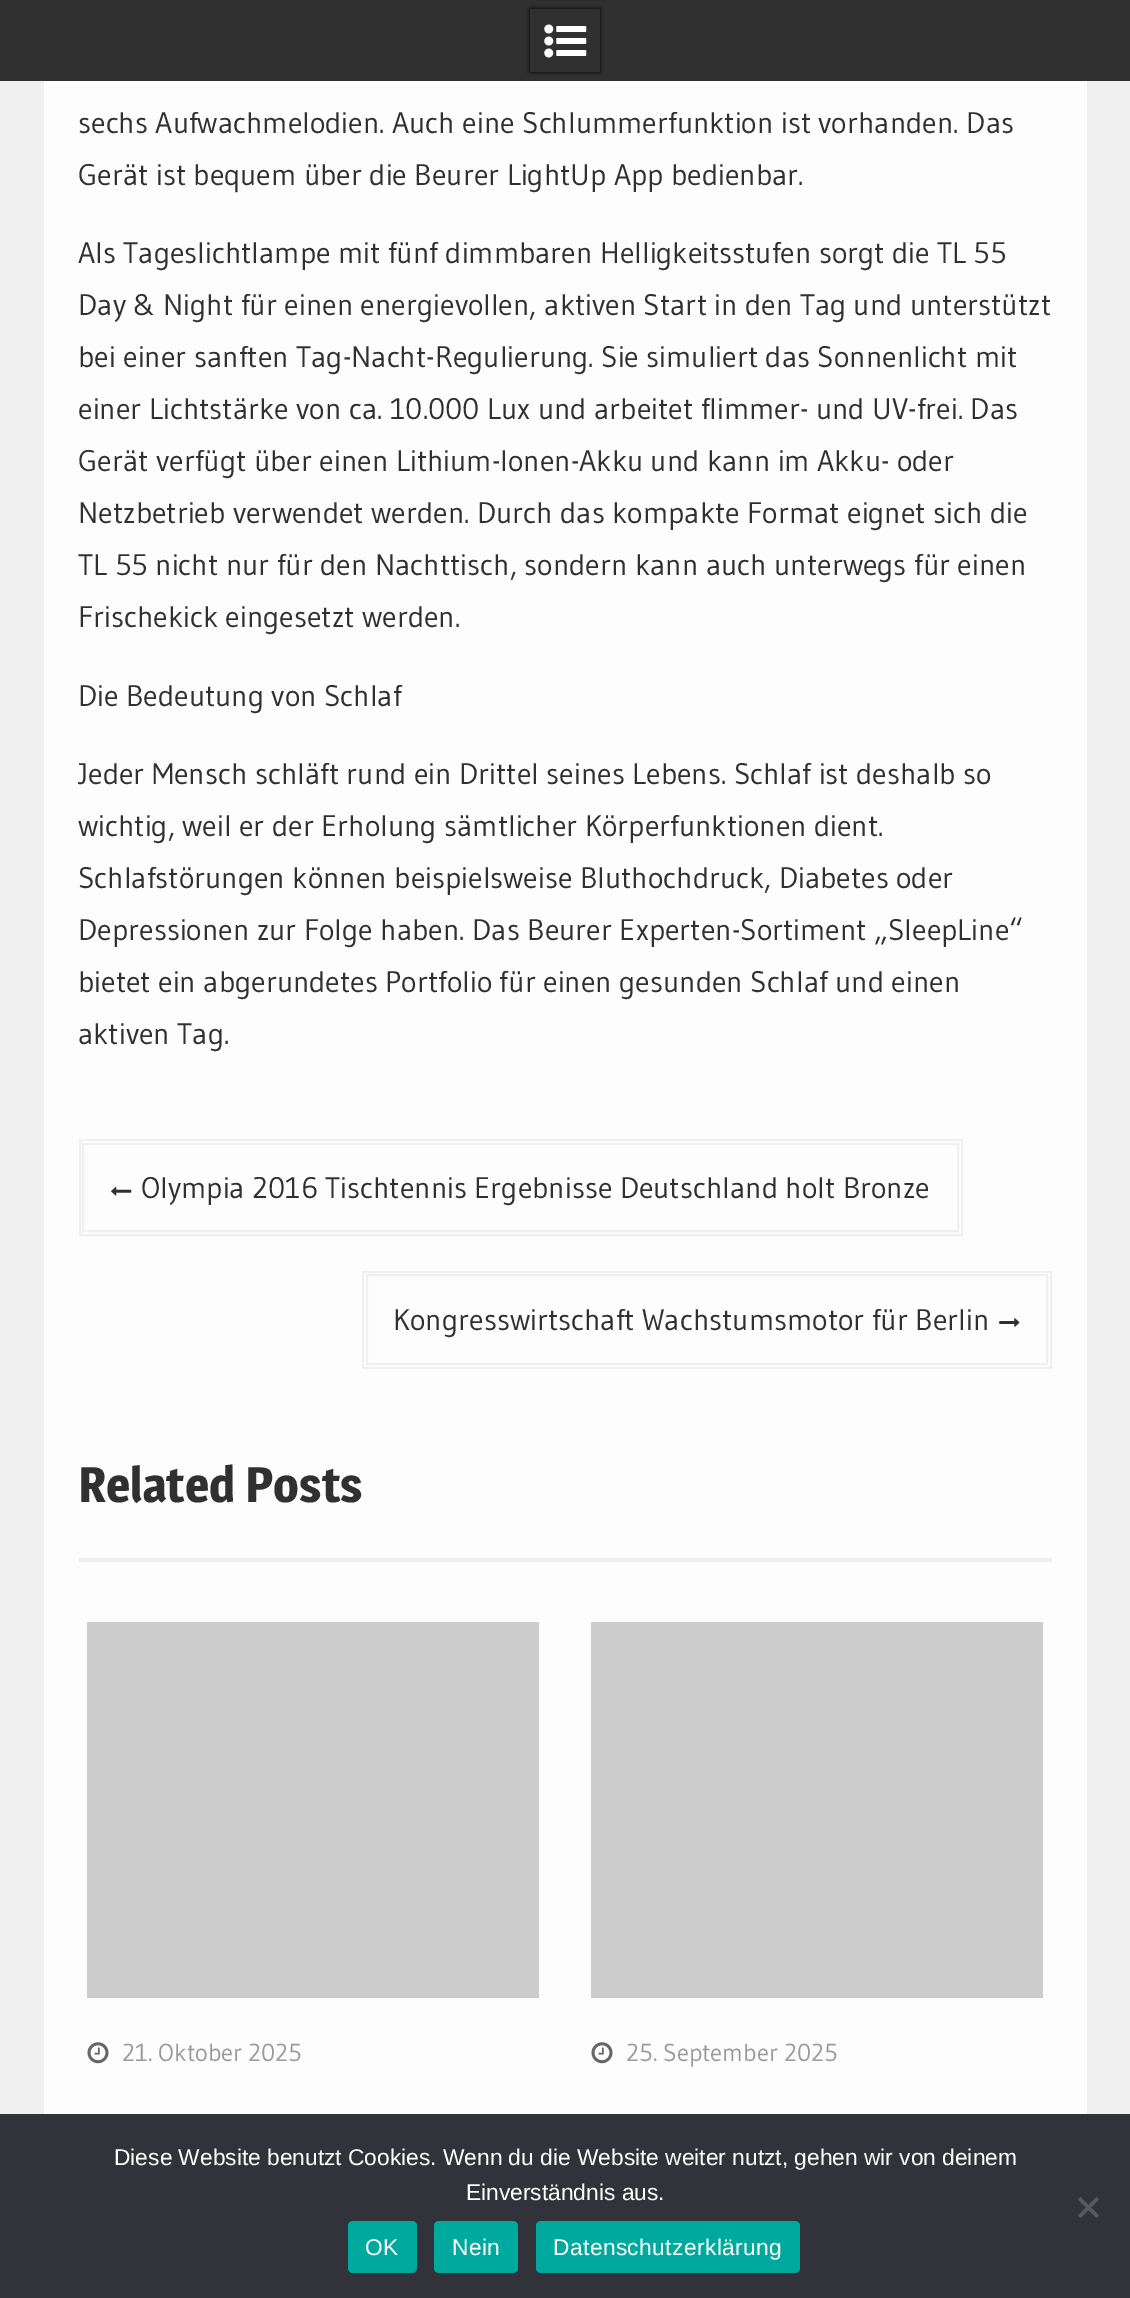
%!PS-Adobe-3.0
%%BoundingBox: 0 0 1130 2298
%%LanguageLevel: 3
%%Pages: 1
%%EndComments
%%BeginProlog
/setink { 3 { 255 div 3 1 roll } repeat setrgbcolor } def
/usefont { [ exch dup neg 0 0 3 -1 roll 0 0 ] selectfont } def
/drawtext { setink usefont moveto show } def
/fillbox { setink rectfill } def
/setalpha { dup .setfillconstantalpha .setstrokeconstantalpha } def
/rrect { 5 dict begin { /r /h /w /y /x } { exch def } forall
  x r add y moveto x w add y 2 copy h add r arct x w add y h add x 1 index r arct
  x y h add x y r arct x y 2 copy exch w add exch r arct closepath end } def
/softshadow { 12 dict begin { /a /b /q /h /w /y /x } { exch def } forall gsave /was 0 def
  9 -2 -9 { dup b mul 4 div /e exch def 1 sub .425 mul 2.718 exch exp 1 add a .99 .min exch div /now exch def
    1 1 now sub 1 was sub div sub setalpha /was now def
    w h .min e 2 mul add 0 gt { x e sub y e sub w e 2 mul add h e 2 mul add
      q e add b .6 mul add w h .min 2 div e add .min 0 .max rrect fill } if } for grestore end } def
/drawimage { 5 dict begin { /h /w /y /x /name } { exch def } forall
  gsave x y translate w h scale
  w h 8 [w 0 0 h 0 0] name (r) file false 3 colorimage grestore end } def
%%EndProlog
%%BeginSetup
<< /PageSize [1130 2298] /PageUsesTransparency true >> setpagedevice
%%EndSetup
%%Page: 1 1
0 .pushpdf14devicefilter
0 2298 translate 1 -1 scale
4 setmiterlimit
0 0 1130 2298 241 240 240 fillbox
0 0 1130 81 48 48 48 fillbox
gsave
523 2 moveto 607 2 lineto 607 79 lineto 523 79 lineto closepath 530 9 moveto 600 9 lineto 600 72 lineto 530 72 lineto closepath eoclip newpath
0 0 0 setink
530 9 70 63 0 2 1 softshadow
grestore
(assets/img1.rgb) 544 24 43 34 drawimage
44 81 1043 2033 253 253 253 fillbox
(sechs Aufwachmelodien. Auch eine Schlummerfunktion ist vorhanden. Das) 78 133 /Gudea-Regular 29.75 48 48 48 drawtext
(Gerät ist bequem über die Beurer LightUp App bedienbar.) 78 185 /Gudea-Regular 29.75 48 48 48 drawtext
(Als Tageslichtlampe mit fünf dimmbaren Helligkeitsstufen sorgt die TL 55) 78 263 /Gudea-Regular 29.75 48 48 48 drawtext
(Day & Night für einen energievollen, aktiven Start in den Tag und unterstützt) 78 315 /Gudea-Regular 29.75 48 48 48 drawtext
(bei einer sanften Tag-Nacht-Regulierung. Sie simuliert das Sonnenlicht mit) 78 367 /Gudea-Regular 29.75 48 48 48 drawtext
(einer Lichtstärke von ca. 10.000 Lux und arbeitet flimmer- und UV-frei. Das) 78 419 /Gudea-Regular 29.75 48 48 48 drawtext
(Gerät verfügt über einen Lithium-Ionen-Akku und kann im Akku- oder) 78 471 /Gudea-Regular 29.75 48 48 48 drawtext
(Netzbetrieb verwendet werden. Durch das kompakte Format eignet sich die) 78 523 /Gudea-Regular 29.75 48 48 48 drawtext
(TL 55 nicht nur für den Nachttisch, sondern kann auch unterwegs für einen) 78 575 /Gudea-Regular 29.75 48 48 48 drawtext
(Frischekick eingesetzt werden.) 78 627 /Gudea-Regular 29.75 48 48 48 drawtext
(Die Bedeutung von Schlaf) 78 706 /Gudea-Regular 29.75 48 48 48 drawtext
(Jeder Mensch schläft rund ein Drittel seines Lebens. Schlaf ist deshalb so) 78 784 /Gudea-Regular 29.75 48 48 48 drawtext
(wichtig, weil er der Erholung sämtlicher Körperfunktionen dient.) 78 836 /Gudea-Regular 29.75 48 48 48 drawtext
(Schlafstörungen können beispielsweise Bluthochdruck, Diabetes oder) 78 888 /Gudea-Regular 29.75 48 48 48 drawtext
(Depressionen zur Folge haben. Das Beurer Experten-Sortiment „SleepLine“) 78 940 /Gudea-Regular 29.75 48 48 48 drawtext
(bietet ein abgerundetes Portfolio für einen gesunden Schlaf und einen) 78 992 /Gudea-Regular 29.75 48 48 48 drawtext
(aktiven Tag.) 78 1044 /Gudea-Regular 29.75 48 48 48 drawtext
241 240 240 setink
2 setlinewidth
80 1140 882 95 rectstroke
83 1144 875 87 rectstroke
(assets/img2.rgb) 111 1186 21 10 drawimage
(Olympia 2016 Tischtennis Ergebnisse Deutschland holt Bronze) 141 1198 /Gudea-Regular 29.75 48 48 48 drawtext
241 240 240 setink
363 1272 688 96 rectstroke
367 1275 680 89 rectstroke
(Kongresswirtschaft Wachstumsmotor für Berlin) 393 1330 /Gudea-Regular 29.75 48 48 48 drawtext
(assets/img3.rgb) 999 1318 21 9 drawimage
79 1558 973 4 241 240 240 fillbox
(Related Posts) 78 1502 /Magra-SemiBold 49 48 48 48 drawtext
87 1622 452 376 204 204 204 fillbox
(assets/img4.rgb) 87 2042 22 22 drawimage
(21. Oktober 2025) 122 2061 /Gudea-Regular 24.5 153 153 153 drawtext
591 1622 452 376 204 204 204 fillbox
(assets/img4.rgb) 591 2042 22 22 drawimage
(25. September 2025) 626 2061 /Gudea-Regular 24.5 153 153 153 drawtext
0 2114 1130 184 50 50 58 fillbox
(Diese Website benutzt Cookies. Wenn du die Website weiter nutzt, gehen wir von deinem) 114 2165 /LiberationSans-Regular 22.75 255 255 255 drawtext
(Einverständnis aus.) 466 2200 /LiberationSans-Regular 22.75 255 255 255 drawtext
89 89 93 setink
1096.5 2197 moveto 1099 2199.5 lineto 1080.5 2218 lineto 1078 2215.5 lineto closepath fill
1078 2199.5 moveto 1080.5 2197 lineto 1099 2215.5 lineto 1096.5 2218 lineto closepath fill
0 169 157 setink
348 2221 69 52 5 rrect fill
255 255 255 setink
365 2255 moveto 0.4 0 (OK) ashow
0 169 157 setink
434 2221 84 52 5 rrect fill
255 255 255 setink
452 2255 moveto 0.4 0 (Nein) ashow
0 169 157 setink
536 2221 264 52 5 rrect fill
255 255 255 setink
553 2255 moveto 0.4 0 (Datenschutzerklärung) ashow
.poppdf14devicefilter showpage
%%EOF
